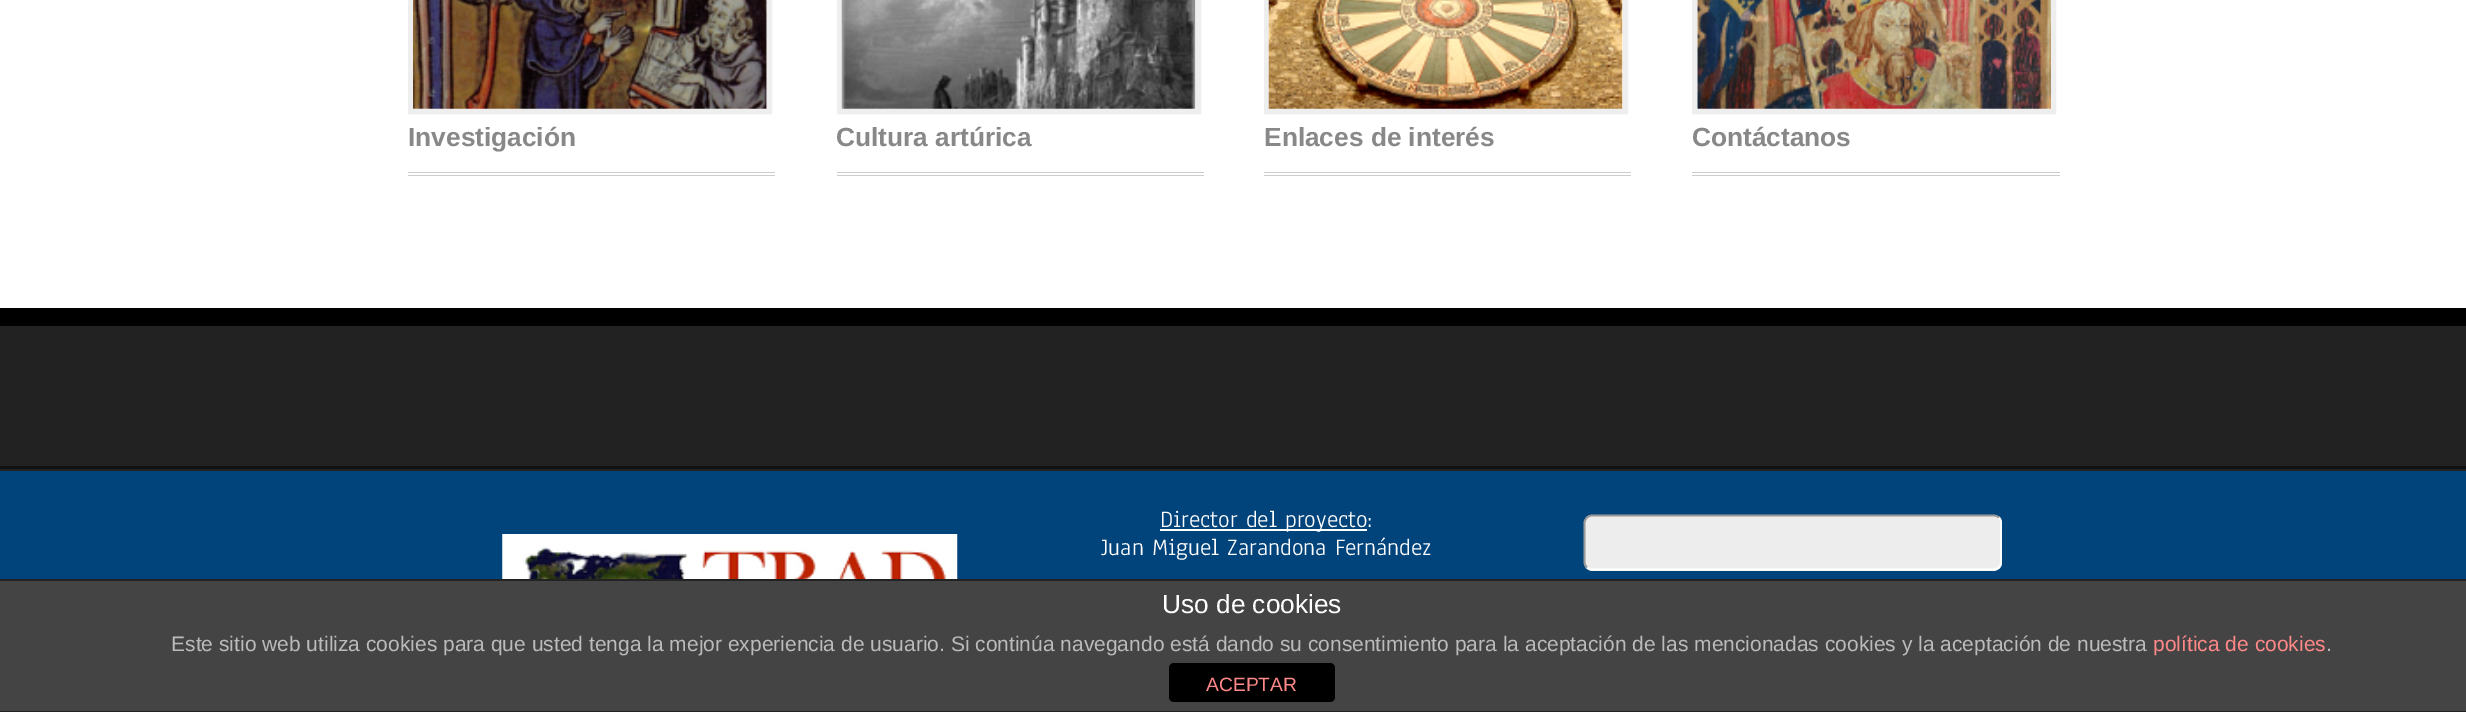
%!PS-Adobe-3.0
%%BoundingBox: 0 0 2466 712
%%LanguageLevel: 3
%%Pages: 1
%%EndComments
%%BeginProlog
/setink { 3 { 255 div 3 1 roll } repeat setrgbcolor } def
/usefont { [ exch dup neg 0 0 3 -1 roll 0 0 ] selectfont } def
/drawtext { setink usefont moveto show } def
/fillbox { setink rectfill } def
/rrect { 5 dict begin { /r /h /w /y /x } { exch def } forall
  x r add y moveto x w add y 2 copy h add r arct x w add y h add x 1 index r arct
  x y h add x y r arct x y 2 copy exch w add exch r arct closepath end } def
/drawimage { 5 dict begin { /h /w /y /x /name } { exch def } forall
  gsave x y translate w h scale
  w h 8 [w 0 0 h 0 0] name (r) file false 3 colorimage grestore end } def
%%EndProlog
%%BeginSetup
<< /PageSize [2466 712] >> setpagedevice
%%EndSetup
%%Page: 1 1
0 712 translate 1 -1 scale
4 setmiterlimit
0 0 2466 712 255 255 255 fillbox
238 238 238 setink
5 setlinewidth
410.5 -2.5 359 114 rectstroke
(assets/img1.rgb) 413 0 354 109 drawimage
(Investigación) 408 146 /LiberationSans-Bold 26.25 136 136 136 drawtext
408 172 367 4 204 204 204 fillbox
408 173 367 2 255 255 255 fillbox
238 238 238 setink
839.5 -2.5 359 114 rectstroke
(assets/img2.rgb) 841 0 355 109 drawimage
(Cultura artúrica) 836 146 /LiberationSans-Bold 26.25 136 136 136 drawtext
837 172 367 4 204 204 204 fillbox
837 173 367 2 255 255 255 fillbox
238 238 238 setink
1266.5 -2.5 359 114 rectstroke
(assets/img3.rgb) 1268 0 355 109 drawimage
(Enlaces de interés) 1264 146 /LiberationSans-Bold 26.25 136 136 136 drawtext
1264 172 367 4 204 204 204 fillbox
1264 173 367 2 255 255 255 fillbox
238 238 238 setink
1694.5 -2.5 359 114 rectstroke
(assets/img4.rgb) 1697 0 354 109 drawimage
(Contáctanos) 1692 146 /LiberationSans-Bold 26.25 136 136 136 drawtext
1692 172 368 4 204 204 204 fillbox
1692 173 368 2 255 255 255 fillbox
0 471 2466 108 1 67 123 fillbox
0 308 2466 18 0 0 0 fillbox
0 466 2466 3 17 17 17 fillbox
0 326 2466 140 34 34 34 fillbox
0 469 2466 2 34 34 34 fillbox
(assets/img5.rgb) 502 534 456 45 drawimage
1160 529 207 2 255 255 255 fillbox
(Director del proyecto:) 1160 527 /Anaheim-Regular 24.5 255 255 255 drawtext
(Juan Miguel Zarandona Fernández) 1101 555 /Anaheim-Regular 24.5 255 255 255 drawtext
237 237 237 setink
1584 515 418 56 9 rrect fill
255 255 255 setink
1.8 setlinewidth
1999 517.5 moveto 2000.5 519 2001 521 2001 523 curveto 2001 562 lineto 2001 564 2000.5 566 1999 567.5 curveto 1997.5 569 1995.5 569.5 1993 569.5 curveto 1592.5 569.5 lineto 1590.5 569.5 1588.5 569 1587 567.5 curveto stroke
153 153 153 setink
1587 567.5 moveto 1585.5 566 1584.5 564 1584.5 562 curveto 1584.5 523 lineto 1584.5 521 1585.5 519 1587 517.5 curveto 1588.5 516 1590.5 515.5 1592.5 515.5 curveto 1993 515.5 lineto 1995.5 515.5 1997.5 516 1999 517.5 curveto stroke
0 581 2466 130 68 68 68 fillbox
0 579 2466 2 34 34 34 fillbox
0 711 2466 1 34 34 34 fillbox
(Uso de cookies) 1162 613 /LiberationSans-Regular 26.25 255 255 255 drawtext
(Este sitio web utiliza cookies para que usted tenga la mejor experiencia de usuario. Si continúa navegando está dando su consentimiento para la aceptación de las mencionadas cookies y la aceptación de nuestra) 171 651 /LiberationSans-Regular 21 187 187 187 drawtext
(política de cookies) 2153 651 /LiberationSans-Regular 21 255 136 136 drawtext
(.) 2326 651 /LiberationSans-Regular 21 187 187 187 drawtext
0 0 0 setink
1169 663 166 39 5 rrect fill
(ACEPTAR) 1206 691 /LiberationSans-Regular 19.25 255 136 136 drawtext
showpage
%%EOF
